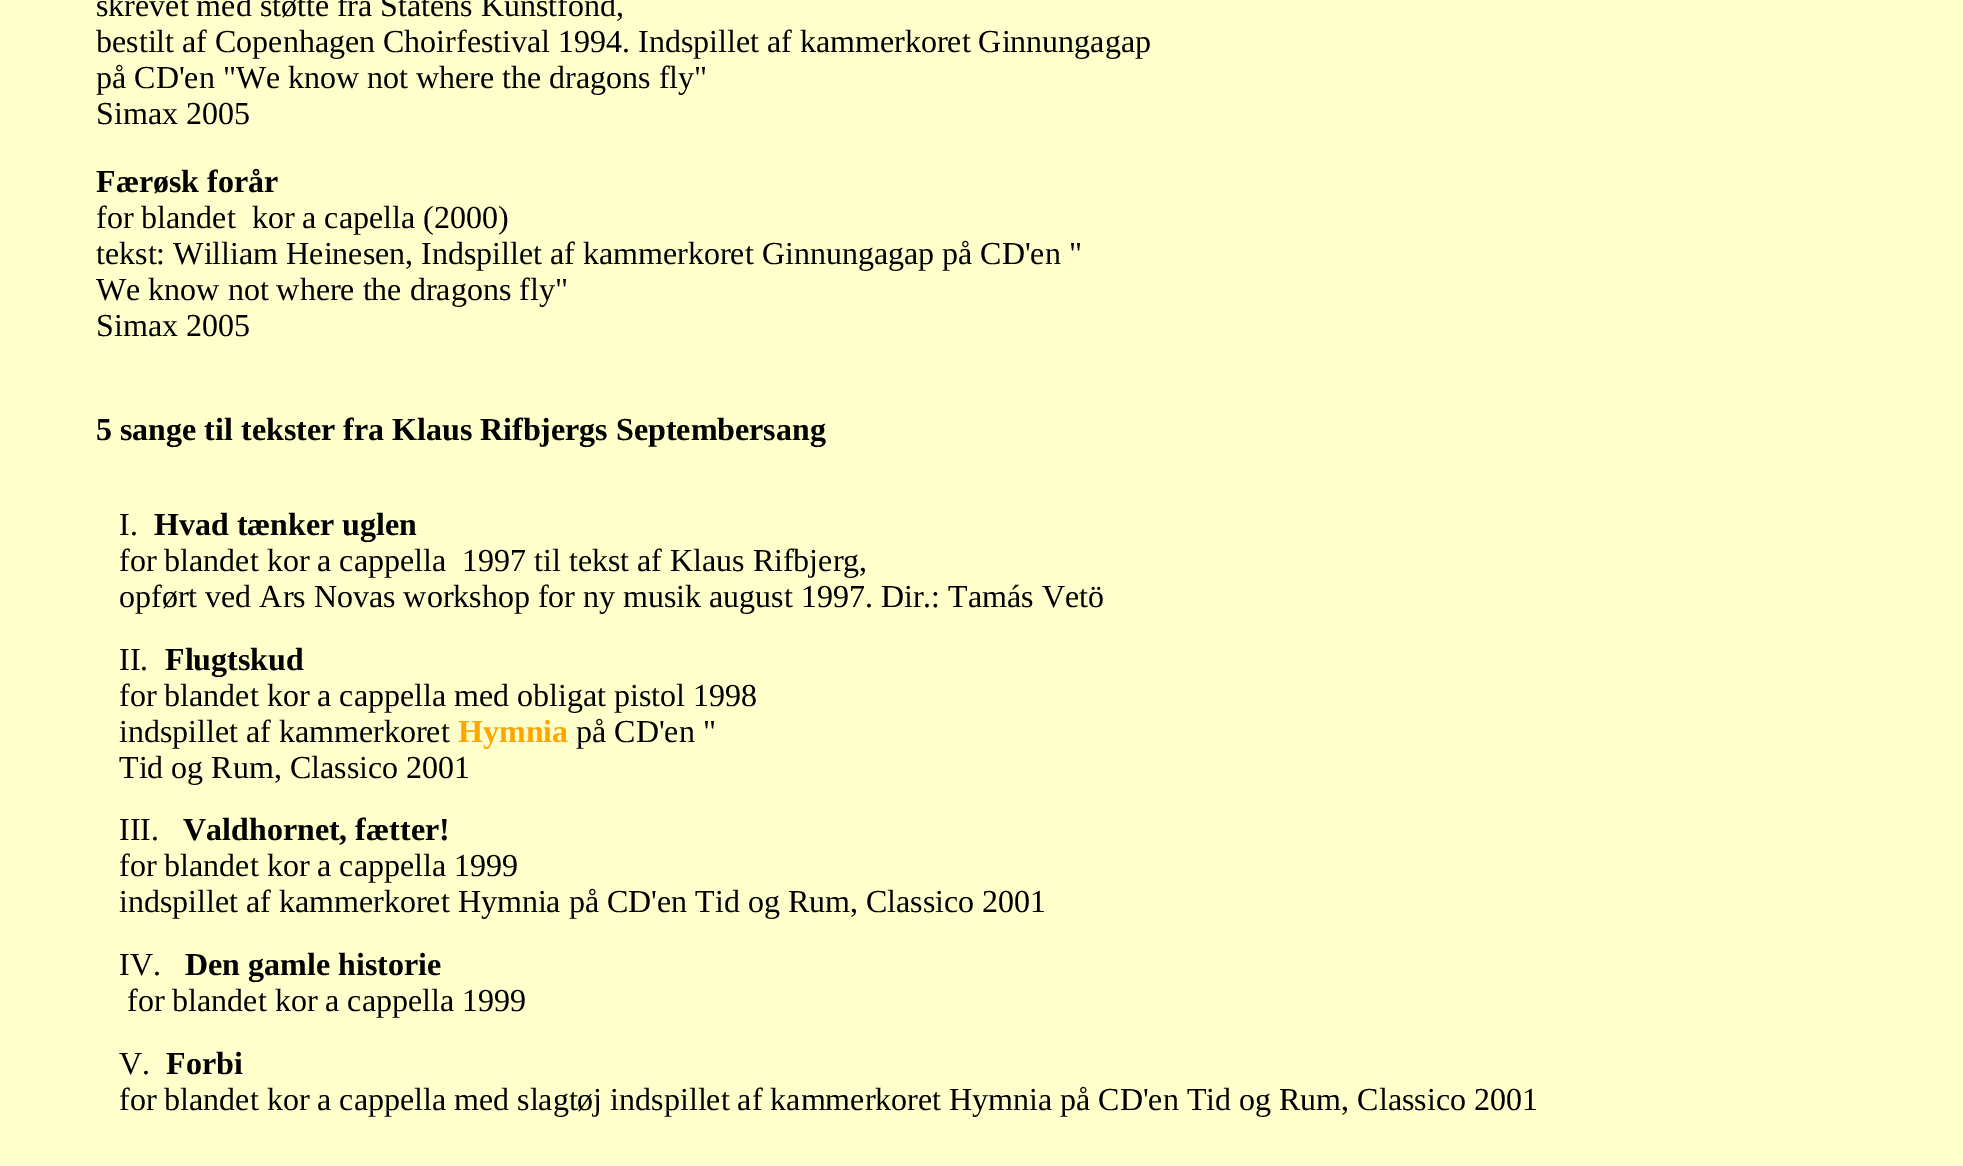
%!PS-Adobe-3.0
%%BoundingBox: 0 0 1963 1166
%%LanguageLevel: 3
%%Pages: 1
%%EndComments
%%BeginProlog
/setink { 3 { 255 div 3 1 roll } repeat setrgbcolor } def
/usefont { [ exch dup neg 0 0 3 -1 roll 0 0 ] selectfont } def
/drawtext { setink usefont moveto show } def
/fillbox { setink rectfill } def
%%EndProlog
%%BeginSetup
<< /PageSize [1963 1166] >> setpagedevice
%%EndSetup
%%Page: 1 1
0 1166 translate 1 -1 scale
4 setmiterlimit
0 0 1963 1166 255 255 204 fillbox
(skrevet med støtte fra Statens Kunstfond,) 96 16 /LiberationSerif-Regular 32 0 0 0 drawtext
(bestilt af Copenhagen Choirfestival 1994. Indspillet af kammerkoret Ginnungagap) 96 52 /LiberationSerif-Regular 32 0 0 0 drawtext
(på CD'en "We know not where the dragons fly") 96 88 /LiberationSerif-Regular 32 0 0 0 drawtext
(Simax 2005) 96 124 /LiberationSerif-Regular 32 0 0 0 drawtext
(Færøsk forår) 96 192 /LiberationSerif-Bold 32 0 0 0 drawtext
(for blandet  kor a capella \(2000\)) 96 228 /LiberationSerif-Regular 32 0 0 0 drawtext
(tekst: William Heinesen, Indspillet af kammerkoret Ginnungagap på CD'en ") 96 264 /LiberationSerif-Regular 32 0 0 0 drawtext
(We know not where the dragons fly") 96 300 /LiberationSerif-Regular 32 0 0 0 drawtext
(Simax 2005) 96 336 /LiberationSerif-Regular 32 0 0 0 drawtext
(5 sange til tekster fra Klaus Rifbjergs Septembersang) 96 440 /LiberationSerif-Bold 32 0 0 0 drawtext
(I.) 119 535 /LiberationSerif-Regular 32 0 0 0 drawtext
(Hvad tænker uglen) 154 535 /LiberationSerif-Bold 32 0 0 0 drawtext
(for blandet kor a cappella  1997 til tekst af Klaus Rifbjerg,) 119 571 /LiberationSerif-Regular 32 0 0 0 drawtext
(opført ved Ars Novas workshop for ny musik august 1997. Dir.: Tamás Vetö) 119 607 /LiberationSerif-Regular 32 0 0 0 drawtext
(II.) 119 670 /LiberationSerif-Regular 32 0 0 0 drawtext
(Flugtskud) 165 670 /LiberationSerif-Bold 32 0 0 0 drawtext
(for blandet kor a cappella med obligat pistol 1998) 119 706 /LiberationSerif-Regular 32 0 0 0 drawtext
(indspillet af kammerkoret) 119 742 /LiberationSerif-Regular 32 0 0 0 drawtext
(Hymnia) 458 742 /LiberationSerif-Bold 32 255 165 0 drawtext
(på CD'en ") 576 742 /LiberationSerif-Regular 32 0 0 0 drawtext
(Tid og Rum, Classico 2001) 119 778 /LiberationSerif-Regular 32 0 0 0 drawtext
(III.) 119 840 /LiberationSerif-Regular 32 0 0 0 drawtext
(Valdhornet, fætter!) 183 840 /LiberationSerif-Bold 32 0 0 0 drawtext
(for blandet kor a cappella 1999) 119 876 /LiberationSerif-Regular 32 0 0 0 drawtext
(indspillet af kammerkoret Hymnia på CD'en Tid og Rum, Classico 2001) 119 912 /LiberationSerif-Regular 32 0 0 0 drawtext
(IV.) 119 975 /LiberationSerif-Regular 32 0 0 0 drawtext
(Den gamle historie) 185 975 /LiberationSerif-Bold 32 0 0 0 drawtext
(for blandet kor a cappella 1999) 127 1011 /LiberationSerif-Regular 32 0 0 0 drawtext
(V.) 119 1074 /LiberationSerif-Regular 32 0 0 0 drawtext
(Forbi) 166 1074 /LiberationSerif-Bold 32 0 0 0 drawtext
(for blandet kor a cappella med slagtøj indspillet af kammerkoret Hymnia på CD'en Tid og Rum, Classico 2001) 119 1110 /LiberationSerif-Regular 32 0 0 0 drawtext
showpage
%%EOF
